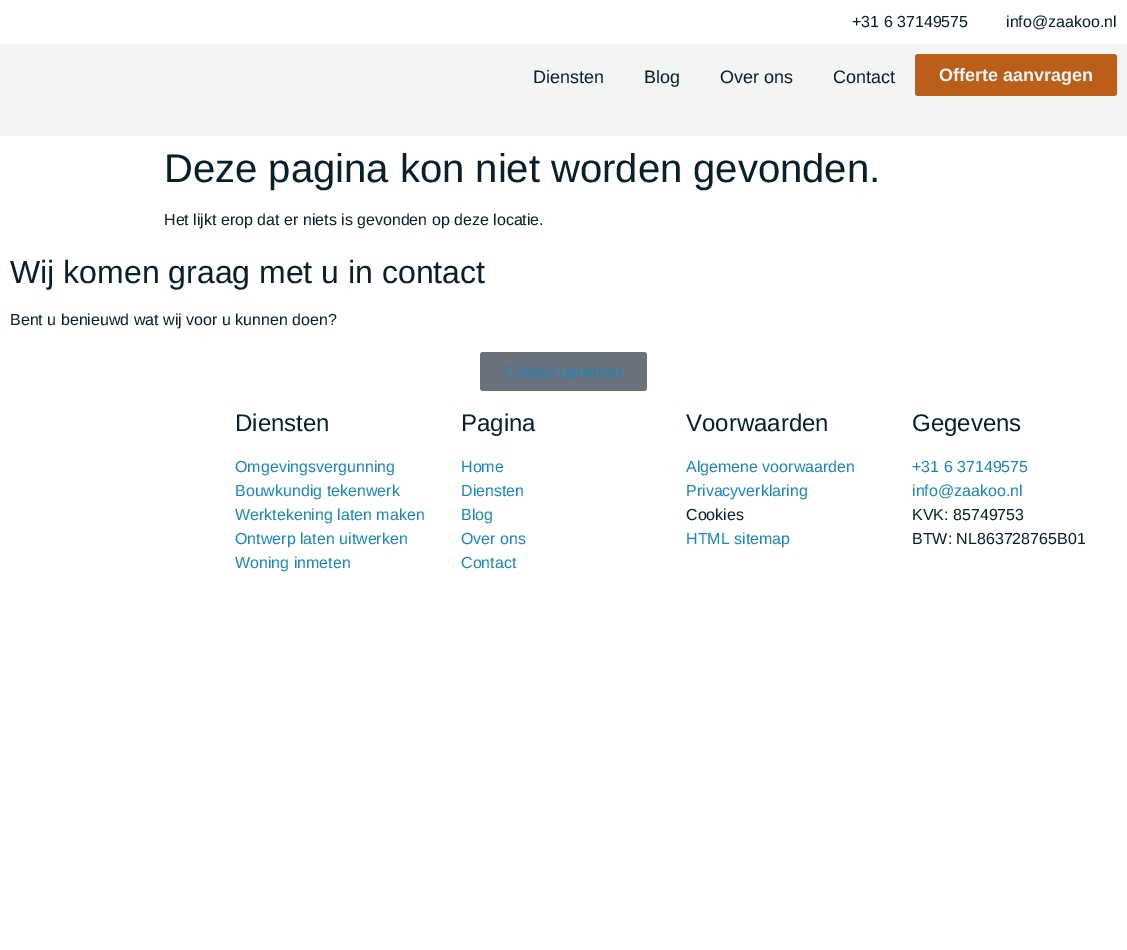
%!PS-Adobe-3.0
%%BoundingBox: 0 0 1127 950
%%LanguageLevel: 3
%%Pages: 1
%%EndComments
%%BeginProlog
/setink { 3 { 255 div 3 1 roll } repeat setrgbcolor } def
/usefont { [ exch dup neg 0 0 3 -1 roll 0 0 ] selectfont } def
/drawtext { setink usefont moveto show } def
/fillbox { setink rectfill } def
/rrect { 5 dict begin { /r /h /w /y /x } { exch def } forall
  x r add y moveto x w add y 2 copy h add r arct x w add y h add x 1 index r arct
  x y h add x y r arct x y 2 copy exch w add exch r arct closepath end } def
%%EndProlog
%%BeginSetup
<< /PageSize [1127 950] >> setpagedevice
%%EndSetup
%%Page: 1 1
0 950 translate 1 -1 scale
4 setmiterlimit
0 0 1127 950 255 255 255 fillbox
(+31 6 37149575) 852 27 /LiberationSans-Regular 16 7 32 44 drawtext
(info@zaakoo.nl) 1006 27 /LiberationSans-Regular 16 7 32 44 drawtext
0 44 1127 92 243 245 245 fillbox
(Diensten) 533 83 /LiberationSans-Regular 18 7 32 44 drawtext
(Blog) 644 83 /LiberationSans-Regular 18 7 32 44 drawtext
(Over ons) 720 83 /LiberationSans-Regular 18 7 32 44 drawtext
(Contact) 833 83 /LiberationSans-Regular 18 7 32 44 drawtext
187 94 26 setink
915 54 202 42 3 rrect fill
(Offerte aanvragen) 939 81 /LiberationSans-Bold 18 243 245 245 drawtext
(Deze pagina kon niet worden gevonden.) 164 182 /LiberationSans-Regular 40 7 32 44 drawtext
(Het lijkt erop dat er niets is gevonden op deze locatie.) 164 225 /LiberationSans-Regular 16 7 32 44 drawtext
(Wij komen graag met u in contact) 10 283 /LiberationSans-Regular 32 7 32 44 drawtext
(Bent u benieuwd wat wij voor u kunnen doen?) 10 325 /LiberationSans-Regular 16 7 32 44 drawtext
105 114 125 setink
480 352 167 39 3 rrect fill
(Contact opnemen) 504 377 /LiberationSans-Regular 15 26 135 187 drawtext
(Diensten) 235 431 /LiberationSans-Regular 24 7 32 44 drawtext
(Omgevingsvergunning) 235 472 /LiberationSans-Regular 16 26 135 187 drawtext
(Bouwkundig tekenwerk) 235 496 /LiberationSans-Regular 16 26 135 187 drawtext
(Werktekening laten maken) 235 520 /LiberationSans-Regular 16 26 135 187 drawtext
(Ontwerp laten uitwerken) 235 544 /LiberationSans-Regular 16 26 135 187 drawtext
(Woning inmeten) 235 568 /LiberationSans-Regular 16 26 135 187 drawtext
(Pagina) 461 431 /LiberationSans-Regular 24 7 32 44 drawtext
(Home) 461 472 /LiberationSans-Regular 16 26 135 187 drawtext
(Diensten) 461 496 /LiberationSans-Regular 16 26 135 187 drawtext
(Blog) 461 520 /LiberationSans-Regular 16 26 135 187 drawtext
(Over ons) 461 544 /LiberationSans-Regular 16 26 135 187 drawtext
(Contact) 461 568 /LiberationSans-Regular 16 26 135 187 drawtext
(Voorwaarden) 686 431 /LiberationSans-Regular 24 7 32 44 drawtext
(Algemene voorwaarden) 686 472 /LiberationSans-Regular 16 26 135 187 drawtext
(Privacyverklaring) 686 496 /LiberationSans-Regular 16 26 135 187 drawtext
(Cookies) 686 520 /LiberationSans-Regular 16 7 32 44 drawtext
(HTML sitemap) 686 544 /LiberationSans-Regular 16 26 135 187 drawtext
(Gegevens) 912 431 /LiberationSans-Regular 24 7 32 44 drawtext
(+31 6 37149575) 912 472 /LiberationSans-Regular 16 26 135 187 drawtext
(info@zaakoo.nl) 912 496 /LiberationSans-Regular 16 26 135 187 drawtext
(KVK: 85749753) 912 520 /LiberationSans-Regular 16 7 32 44 drawtext
(BTW: NL863728765B01) 912 544 /LiberationSans-Regular 16 7 32 44 drawtext
showpage
%%EOF
